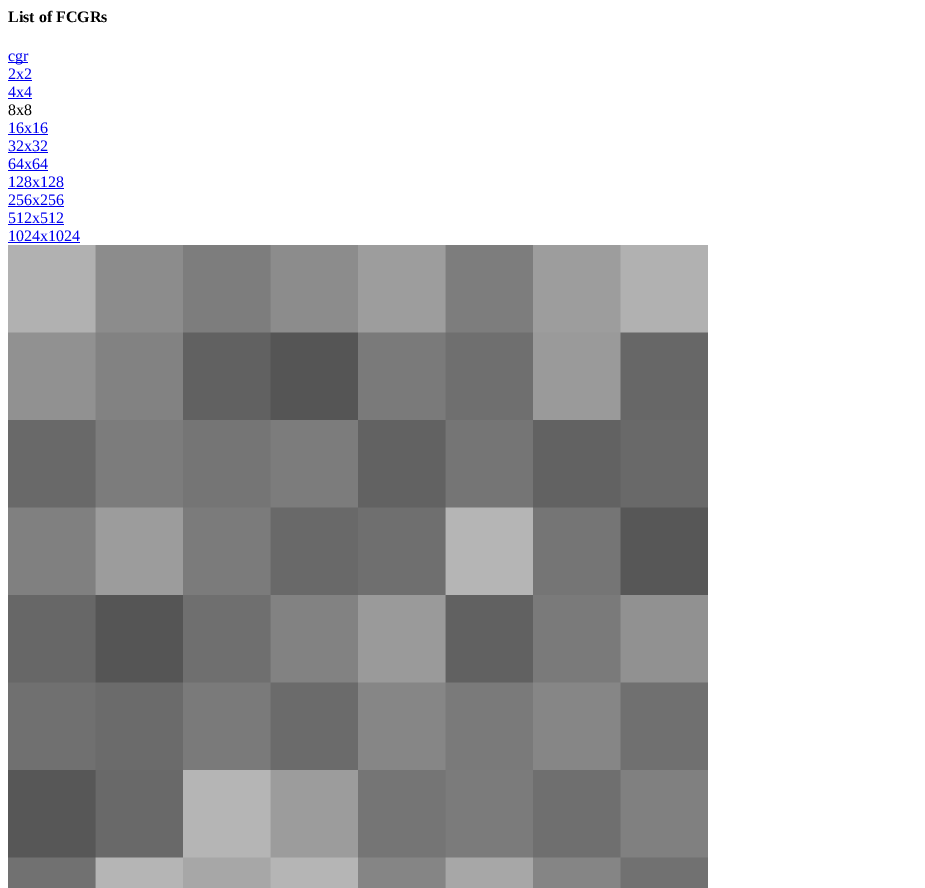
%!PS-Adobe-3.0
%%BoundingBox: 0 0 925 888
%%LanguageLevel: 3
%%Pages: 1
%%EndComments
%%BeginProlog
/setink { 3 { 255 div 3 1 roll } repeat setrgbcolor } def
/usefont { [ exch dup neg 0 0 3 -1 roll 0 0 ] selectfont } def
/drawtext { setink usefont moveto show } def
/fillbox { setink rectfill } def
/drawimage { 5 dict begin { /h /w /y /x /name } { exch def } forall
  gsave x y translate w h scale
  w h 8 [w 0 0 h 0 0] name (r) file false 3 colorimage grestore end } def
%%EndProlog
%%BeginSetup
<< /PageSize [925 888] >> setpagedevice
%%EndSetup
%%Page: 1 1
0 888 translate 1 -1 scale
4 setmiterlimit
0 0 925 888 255 255 255 fillbox
(List of FCGRs) 8 22 /LiberationSerif-Bold 16 0 0 0 drawtext
8 62 20 1 0 0 238 fillbox
(cgr) 8 61 /LiberationSerif-Regular 16 0 0 238 drawtext
(2x2) 8 79 /LiberationSerif-Regular 16 0 0 238 drawtext
8 80 24 1 0 0 238 fillbox
(4x4) 8 97 /LiberationSerif-Regular 16 0 0 238 drawtext
8 98 24 1 0 0 238 fillbox
(8x8) 8 115 /LiberationSerif-Regular 16 0 0 0 drawtext
(16x16) 8 133 /LiberationSerif-Regular 16 0 0 238 drawtext
8 134 40 1 0 0 238 fillbox
(32x32) 8 151 /LiberationSerif-Regular 16 0 0 238 drawtext
8 152 40 1 0 0 238 fillbox
(64x64) 8 169 /LiberationSerif-Regular 16 0 0 238 drawtext
8 170 40 1 0 0 238 fillbox
(128x128) 8 187 /LiberationSerif-Regular 16 0 0 238 drawtext
8 188 56 1 0 0 238 fillbox
(256x256) 8 205 /LiberationSerif-Regular 16 0 0 238 drawtext
8 206 56 1 0 0 238 fillbox
(512x512) 8 223 /LiberationSerif-Regular 16 0 0 238 drawtext
8 224 56 1 0 0 238 fillbox
(1024x1024) 8 241 /LiberationSerif-Regular 16 0 0 238 drawtext
8 242 72 1 0 0 238 fillbox
(assets/img1.rgb) 8 245 700 643 drawimage
showpage
%%EOF
